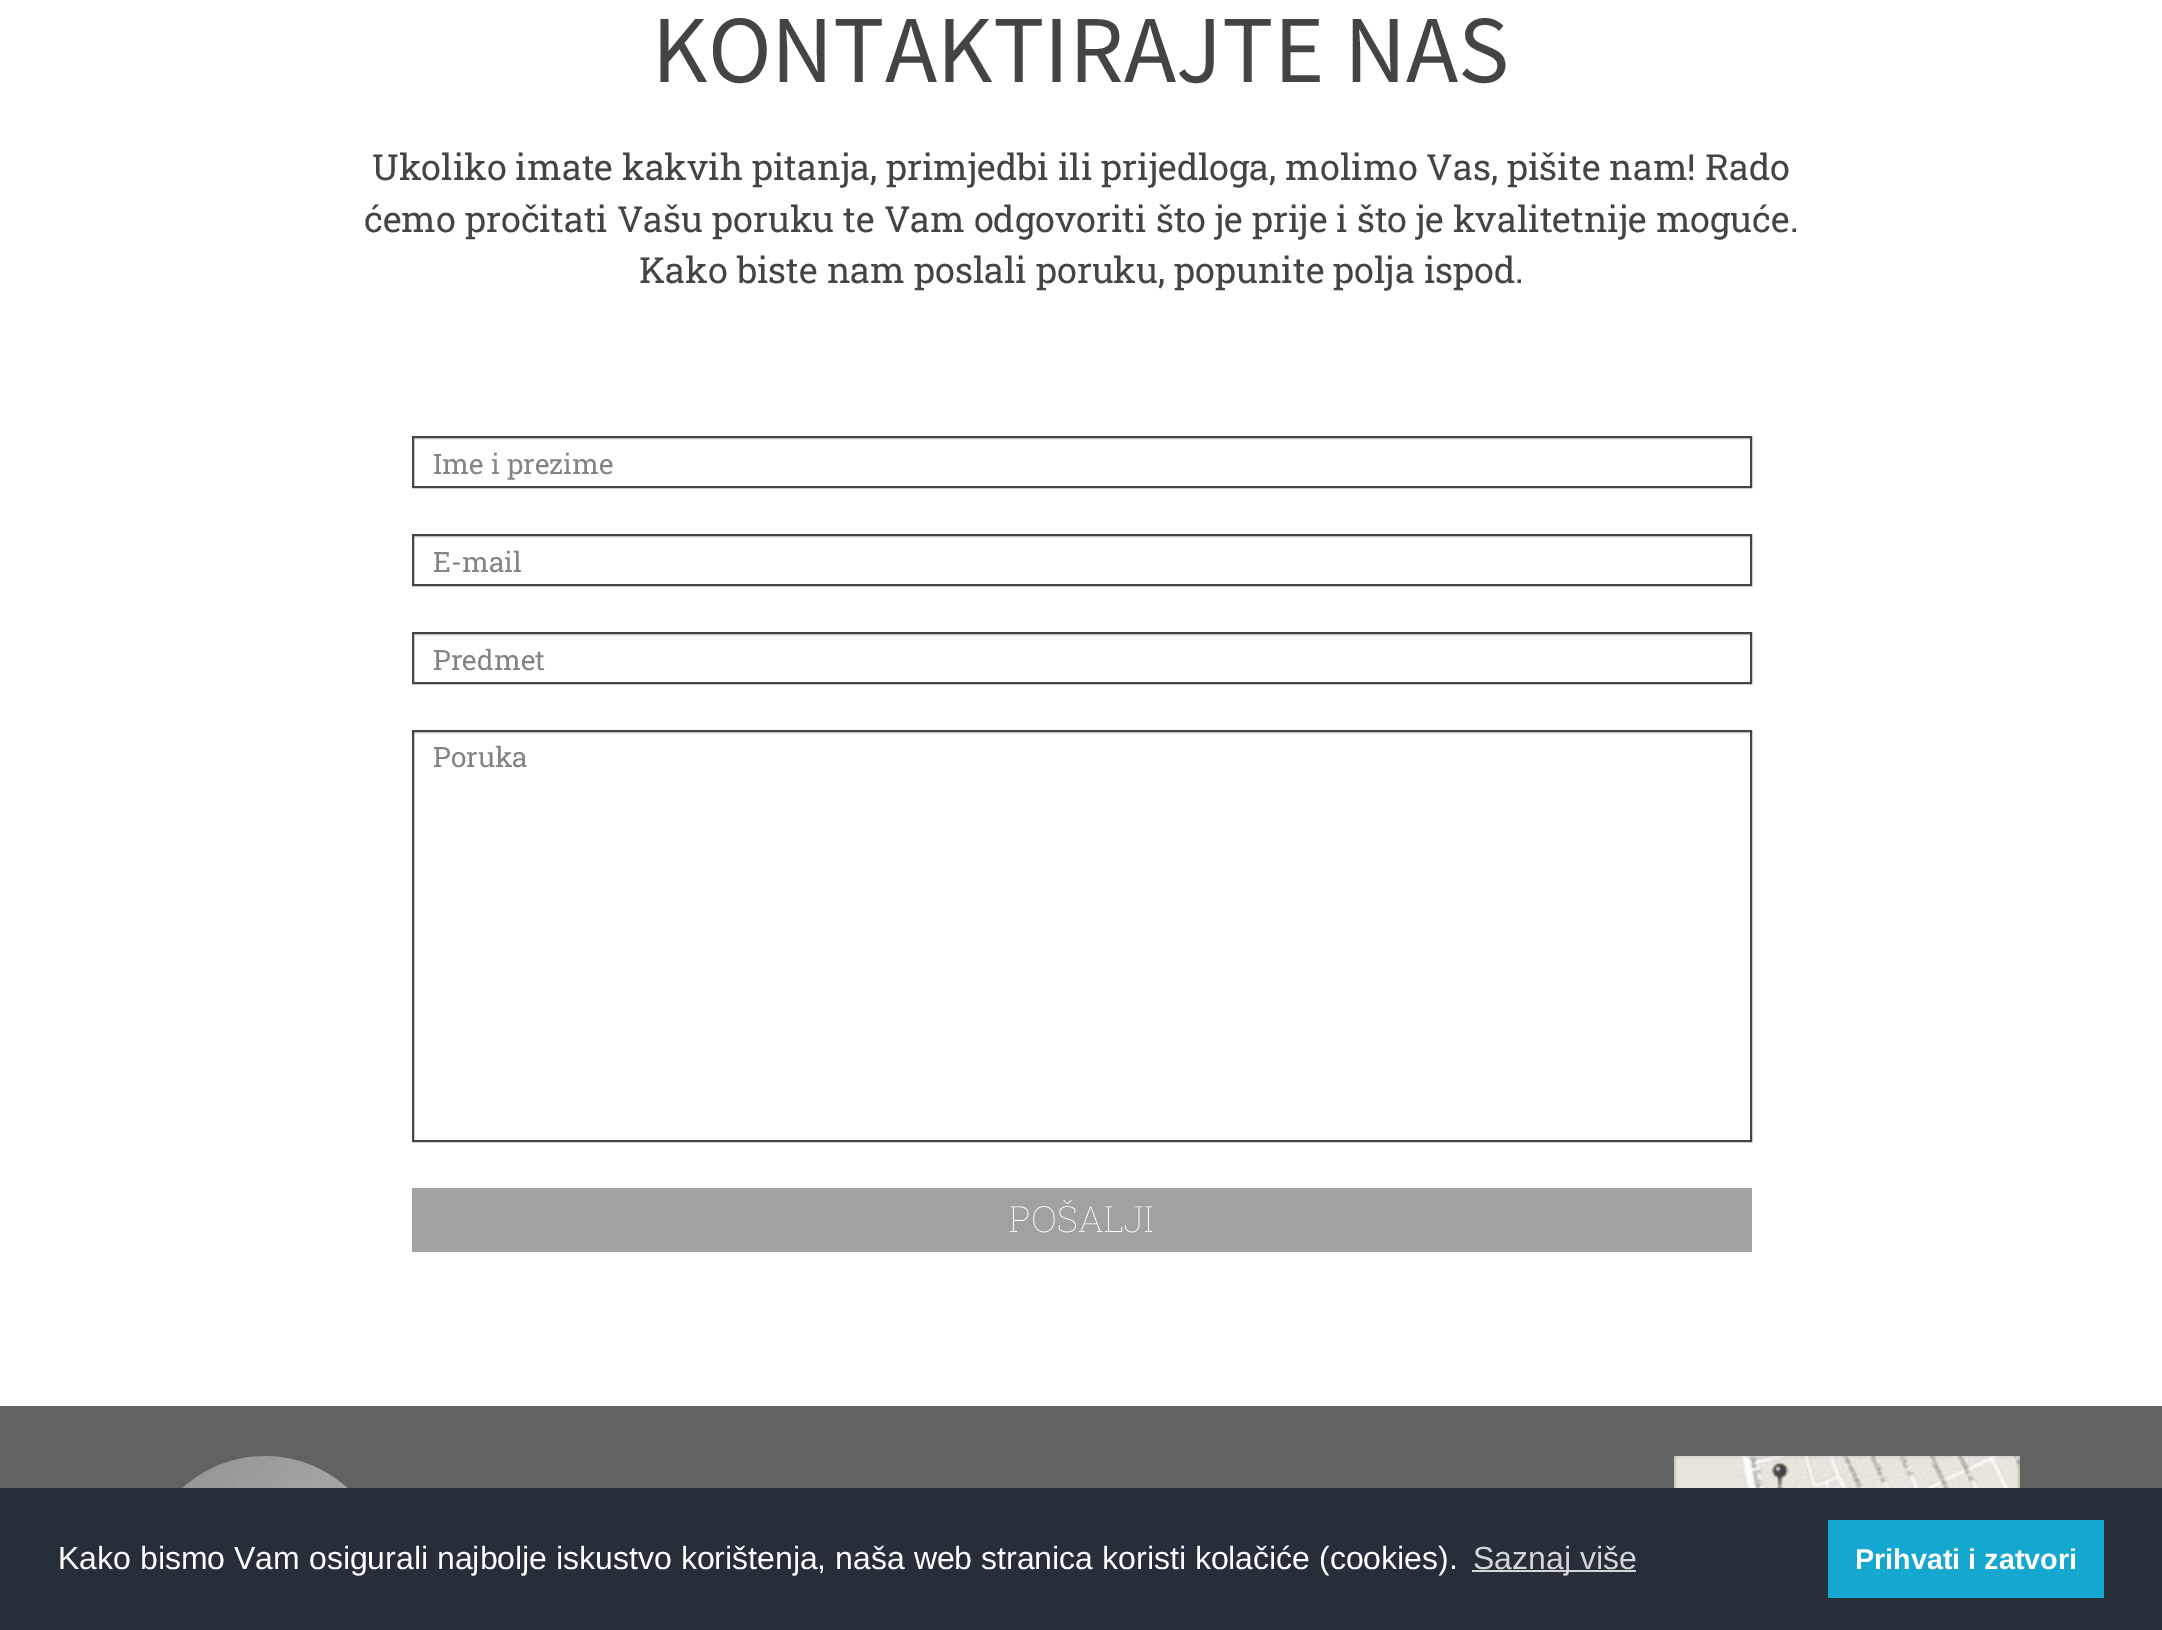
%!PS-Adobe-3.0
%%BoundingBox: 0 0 2162 1630
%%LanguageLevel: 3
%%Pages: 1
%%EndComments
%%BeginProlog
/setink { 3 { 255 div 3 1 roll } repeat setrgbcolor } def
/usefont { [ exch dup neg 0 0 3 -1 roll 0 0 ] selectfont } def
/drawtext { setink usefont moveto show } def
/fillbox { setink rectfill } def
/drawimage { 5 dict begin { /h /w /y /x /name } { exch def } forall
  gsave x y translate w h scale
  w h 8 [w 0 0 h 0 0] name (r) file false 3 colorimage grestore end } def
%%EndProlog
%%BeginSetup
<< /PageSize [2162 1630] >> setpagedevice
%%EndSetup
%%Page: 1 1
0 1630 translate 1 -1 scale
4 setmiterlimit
0 0 2162 1630 255 255 255 fillbox
(KONTAKTIRAJTE NAS) 652 82 /SourceSansPro-Regular 96 68 68 68 drawtext
(Ukoliko imate kakvih pitanja, primjedbi ili prijedloga, molimo Vas, pišite nam! Rado) 372 180 /RobotoSlab-Regular 36 68 68 68 drawtext
(ćemo pročitati Vašu poruku te Vam odgovoriti što je prije i što je kvalitetnije moguće.) 364 232 /RobotoSlab-Regular 36 68 68 68 drawtext
(Kako biste nam poslali poruku, popunite polja ispod.) 639 283 /RobotoSlab-Regular 36 68 68 68 drawtext
414 438 1336 2 236 236 236 fillbox
68 68 68 setink
2 setlinewidth
413 437 1338 50 rectstroke
(Ime i prezime) 433 474 /RobotoSlab-Regular 28 132 132 132 drawtext
414 536 1336 2 236 236 236 fillbox
68 68 68 setink
413 535 1338 50 rectstroke
(E-mail) 433 572 /RobotoSlab-Regular 28 132 132 132 drawtext
414 634 1336 2 236 236 236 fillbox
68 68 68 setink
413 633 1338 50 rectstroke
(Predmet) 433 670 /RobotoSlab-Regular 28 132 132 132 drawtext
414 732 1336 2 236 236 236 fillbox
68 68 68 setink
413 731 1338 410 rectstroke
(Poruka) 433 767 /RobotoSlab-Regular 28 132 132 132 drawtext
412 1188 1340 64 161 161 161 fillbox
(POŠALJI) 1009 1232 /RobotoSlab-Thin 36 255 255 255 drawtext
0 1406 2162 82 98 98 98 fillbox
(assets/img1.rgb) 182 1456 166 32 drawimage
(assets/img2.rgb) 1674 1456 346 32 drawimage
0 1488 2162 142 37 46 57 fillbox
(Kako bismo Vam osigurali najbolje iskustvo korištenja, naša web stranica koristi kolačiće \(cookies\).) 58 1569 /LiberationSans-Regular 32 255 255 255 drawtext
1472 1570 164 2 211 213 215 fillbox
(Saznaj više) 1473 1569 /LiberationSans-Regular 32 211 213 215 drawtext
1828 1520 276 78 20 167 208 fillbox
(Prihvati i zatvori) 1855 1569 /LiberationSans-Bold 28.75 255 255 255 drawtext
showpage
%%EOF
